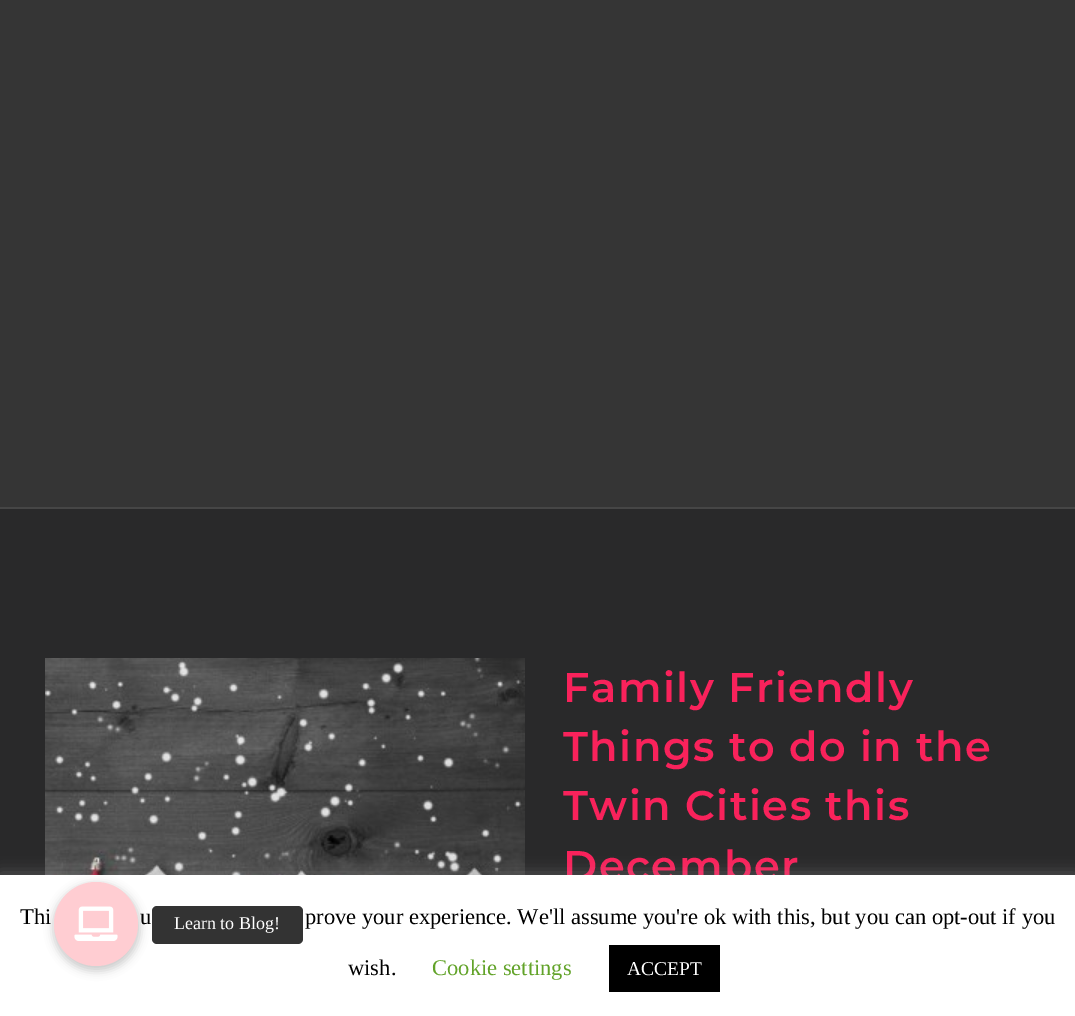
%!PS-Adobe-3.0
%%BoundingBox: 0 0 1075 1016
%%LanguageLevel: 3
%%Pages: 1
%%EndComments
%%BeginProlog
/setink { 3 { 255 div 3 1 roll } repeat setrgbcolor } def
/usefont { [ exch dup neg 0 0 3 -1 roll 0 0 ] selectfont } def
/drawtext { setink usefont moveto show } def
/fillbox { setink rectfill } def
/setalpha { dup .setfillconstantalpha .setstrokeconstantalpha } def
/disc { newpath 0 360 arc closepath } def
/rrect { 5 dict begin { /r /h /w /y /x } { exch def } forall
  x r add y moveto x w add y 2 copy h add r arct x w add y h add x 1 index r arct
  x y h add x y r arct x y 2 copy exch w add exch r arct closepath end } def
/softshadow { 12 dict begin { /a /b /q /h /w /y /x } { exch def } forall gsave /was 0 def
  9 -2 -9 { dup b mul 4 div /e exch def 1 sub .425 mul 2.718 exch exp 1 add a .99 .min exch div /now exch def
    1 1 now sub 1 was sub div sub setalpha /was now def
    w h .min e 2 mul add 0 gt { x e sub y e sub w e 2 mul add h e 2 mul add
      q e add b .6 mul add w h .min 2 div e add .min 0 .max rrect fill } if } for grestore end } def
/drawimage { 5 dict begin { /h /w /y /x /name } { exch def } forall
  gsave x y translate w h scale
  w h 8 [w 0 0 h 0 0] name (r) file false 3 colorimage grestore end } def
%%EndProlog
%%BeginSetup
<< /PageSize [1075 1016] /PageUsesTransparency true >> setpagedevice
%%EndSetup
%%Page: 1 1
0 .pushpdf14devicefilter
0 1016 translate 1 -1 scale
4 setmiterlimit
0 0 1075 1016 41 41 42 fillbox
0 0 1075 507 53 53 53 fillbox
0 507 1075 2 70 70 70 fillbox
(assets/img1.rgb) 45 658 480 217 drawimage
/Montserrat-SemiBold 41.4 usefont
249 34 91 setink
563 702 moveto 1.5 0 (Family Friendly) ashow
563 761 moveto 1.5 0 (Things to do in the) ashow
563 820 moveto 1.5 0 (Twin Cities this) ashow
563 880 moveto 1.5 0 (December) ashow
172 171 171 setink
0 873 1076 143 0 7.5 0.3 softshadow
0 875 1075 141 255 255 255 fillbox
(Thi) 20 924 /LiberationSerif-Regular 22.5 0 0 0 drawtext
(u) 140 924 /LiberationSerif-Regular 22.5 0 0 0 drawtext
(prove your experience. We'll assume you're ok with this, but you can opt-out if you) 305 924 /LiberationSerif-Regular 22.5 0 0 0 drawtext
(wish.) 348 975 /LiberationSerif-Regular 22.5 0 0 0 drawtext
(Cookie settings) 432 975 /LiberationSerif-Regular 22.5 98 163 41 drawtext
609 945 111 47 0 0 0 fillbox
(ACCEPT) 627 975 /LiberationSerif-Regular 19.5 255 255 255 drawtext
0 0 0 setink
53 884 87 87 43.5 4.5 0.2 softshadow
255 205 210 setink
96 924 42 disc fill
(assets/img2.rgb) 74 906 44 35 drawimage
51 51 51 setink
152 906 151 38 5 rrect fill
(Learn to Blog!) 174 929 /LiberationSerif-Regular 18 255 255 255 drawtext
.poppdf14devicefilter showpage
%%EOF
